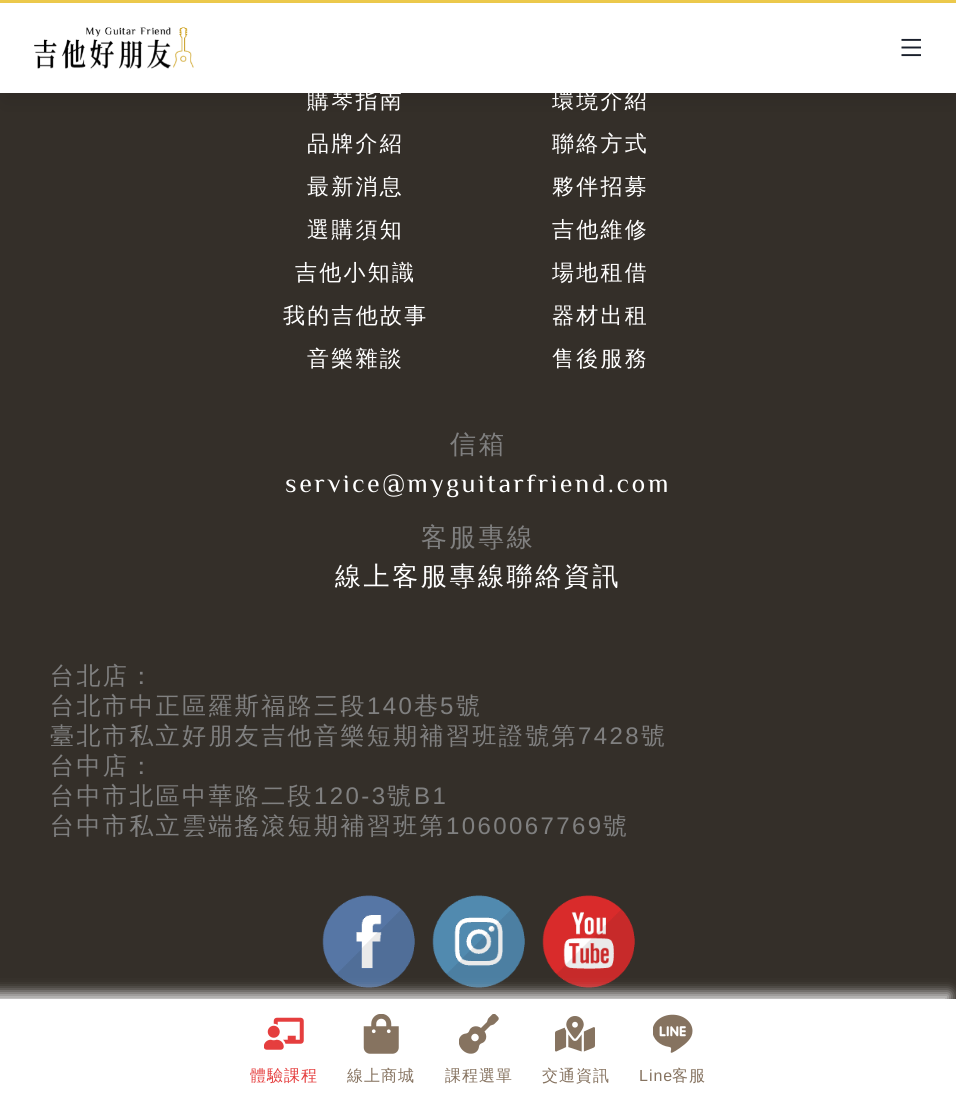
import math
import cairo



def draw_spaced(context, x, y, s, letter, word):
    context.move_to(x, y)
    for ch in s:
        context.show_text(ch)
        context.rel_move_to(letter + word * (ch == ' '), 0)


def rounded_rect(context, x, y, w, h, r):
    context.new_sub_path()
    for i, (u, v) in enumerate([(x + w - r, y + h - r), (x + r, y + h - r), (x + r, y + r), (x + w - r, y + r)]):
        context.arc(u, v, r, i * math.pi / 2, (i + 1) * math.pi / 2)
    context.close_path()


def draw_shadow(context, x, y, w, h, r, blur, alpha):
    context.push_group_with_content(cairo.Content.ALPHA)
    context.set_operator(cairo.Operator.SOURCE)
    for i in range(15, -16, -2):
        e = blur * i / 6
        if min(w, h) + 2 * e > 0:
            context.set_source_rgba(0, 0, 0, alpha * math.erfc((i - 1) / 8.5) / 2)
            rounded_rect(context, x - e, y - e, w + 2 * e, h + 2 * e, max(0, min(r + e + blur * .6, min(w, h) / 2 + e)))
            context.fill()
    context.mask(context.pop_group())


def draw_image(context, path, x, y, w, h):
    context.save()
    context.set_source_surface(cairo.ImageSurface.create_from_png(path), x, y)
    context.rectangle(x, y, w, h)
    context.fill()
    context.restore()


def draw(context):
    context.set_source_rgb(52 / 255, 47 / 255, 41 / 255)
    context.paint()
    draw_image(context, "images/1.png", 322, 895, 93, 93)
    draw_image(context, "images/2.png", 432, 895, 93, 93)
    draw_image(context, "images/3.png", 542, 895, 93, 93)
    context.set_source_rgb(1, 1, 1)
    context.rectangle(0, 3, 956, 90)
    context.fill()
    context.set_source_rgb(236 / 255, 201 / 255, 75 / 255)
    context.rectangle(0, 0, 956, 3)
    context.fill()
    context.save()
    context.set_fill_rule(cairo.FillRule.EVEN_ODD)
    context.new_path()
    context.move_to(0, 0)
    context.line_to(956, 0)
    context.line_to(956, 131)
    context.line_to(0, 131)
    context.close_path()
    context.move_to(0, 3)
    context.line_to(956, 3)
    context.line_to(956, 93)
    context.line_to(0, 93)
    context.close_path()
    context.clip()
    context.set_source_rgb(0, 0, 0)
    draw_shadow(context, 4, 19, 949, 82, 0, 9.5, 0.1)
    context.restore()
    draw_image(context, "images/4.png", 34, 27, 160, 42)
    draw_image(context, "images/5.png", 901, 38, 20, 19)
    context.set_source_rgb(220 / 255, 220 / 255, 220 / 255)
    draw_shadow(context, -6, 993, 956, 98, 0, 6, 1)
    context.set_source_rgb(1, 1, 1)
    context.rectangle(0, 999, 956, 98)
    context.fill()
    draw_image(context, "images/6.png", 264, 1017, 40, 33)
    draw_image(context, "images/7.png", 363, 1014, 36, 40)
    draw_image(context, "images/8.png", 459, 1014, 40, 40)
    draw_image(context, "images/9.png", 555, 1016, 40, 36)
    draw_image(context, "images/10.png", 653, 1014, 40, 39)
    context.select_font_face("WenQuanYi Zen Hei Medium")
    context.set_font_size(22)
    draw_spaced(context, 307, 108, "購琴指南", 2.25, 0)
    draw_spaced(context, 307, 151, "品牌介紹", 2.25, 0)
    draw_spaced(context, 307, 194, "最新消息", 2.25, 0)
    draw_spaced(context, 307, 237, "選購須知", 2.25, 0)
    draw_spaced(context, 295, 280, "吉他小知識", 2.25, 0)
    draw_spaced(context, 283, 323, "我的吉他故事", 2.25, 0)
    draw_spaced(context, 307, 366, "音樂雜談", 2.25, 0)
    draw_spaced(context, 552, 108, "環境介紹", 2.25, 0)
    draw_spaced(context, 552, 151, "聯絡方式", 2.25, 0)
    draw_spaced(context, 552, 194, "夥伴招募", 2.25, 0)
    draw_spaced(context, 552, 237, "吉他維修", 2.25, 0)
    draw_spaced(context, 552, 280, "場地租借", 2.25, 0)
    draw_spaced(context, 552, 323, "器材出租", 2.25, 0)
    draw_spaced(context, 552, 366, "售後服務", 2.25, 0)
    context.set_font_size(26)
    context.set_source_rgb(128 / 255, 128 / 255, 128 / 255)
    draw_spaced(context, 450, 453, "信箱", 2.6, 0)
    context.select_font_face("Philosopher")
    context.set_source_rgb(1, 1, 1)
    draw_spaced(context, 285, 492, "service@myguitarfriend.com", 2.6, 0)
    context.select_font_face("WenQuanYi Zen Hei Medium")
    context.set_source_rgb(128 / 255, 128 / 255, 128 / 255)
    draw_spaced(context, 421, 546, "客服專線", 2.6, 0)
    context.set_source_rgb(1, 1, 1)
    draw_spaced(context, 335, 585, "線上客服專線聯絡資訊", 2.6, 0)
    context.set_font_size(24)
    context.set_source_rgb(128 / 255, 128 / 255, 128 / 255)
    draw_spaced(context, 50, 684, "台北店：", 2.4, 0)
    draw_spaced(context, 50, 714, "台北市中正區羅斯福路三段", 2.4, 0)
    context.select_font_face("Liberation Sans")
    draw_spaced(context, 367, 714, "140", 2.4, 0)
    context.select_font_face("WenQuanYi Zen Hei Medium")
    draw_spaced(context, 414, 714, "巷", 2.4, 0)
    context.select_font_face("Liberation Sans")
    draw_spaced(context, 440, 714, "5", 2.4, 0)
    context.select_font_face("WenQuanYi Zen Hei Medium")
    draw_spaced(context, 456, 714, "號", 2.4, 0)
    draw_spaced(context, 50, 744, "臺北市私立好朋友吉他音樂短期補習班證號第", 2.4, 0)
    context.select_font_face("Liberation Sans")
    draw_spaced(context, 578, 744, "7428", 2.4, 0)
    context.select_font_face("WenQuanYi Zen Hei Medium")
    draw_spaced(context, 641, 744, "號", 2.4, 0)
    draw_spaced(context, 50, 774, "台中店：", 2.4, 0)
    draw_spaced(context, 50, 804, "台中市北區中華路二段", 2.4, 0)
    context.select_font_face("Liberation Sans")
    draw_spaced(context, 314, 804, "120-3", 2.4, 0)
    context.select_font_face("WenQuanYi Zen Hei Medium")
    draw_spaced(context, 387, 804, "號", 2.4, 0)
    context.select_font_face("Liberation Sans")
    draw_spaced(context, 414, 804, "B1", 2.4, 0)
    context.select_font_face("WenQuanYi Zen Hei Medium")
    draw_spaced(context, 50, 834, "台中市私立雲端搖滾短期補習班第", 2.4, 0)
    context.select_font_face("Liberation Sans")
    draw_spaced(context, 446, 834, "1060067769", 2.4, 0)
    context.select_font_face("WenQuanYi Zen Hei Medium")
    draw_spaced(context, 603, 834, "號", 2.4, 0)
    context.set_font_size(16)
    context.set_source_rgb(229 / 255, 62 / 255, 62 / 255)
    draw_spaced(context, 250, 1081, "體驗課程", 1, 0)
    context.set_source_rgb(134 / 255, 115 / 255, 96 / 255)
    draw_spaced(context, 347, 1081, "線上商城", 1, 0)
    draw_spaced(context, 445, 1081, "課程選單", 1, 0)
    draw_spaced(context, 542, 1081, "交通資訊", 1, 0)
    context.select_font_face("Liberation Sans")
    draw_spaced(context, 639, 1081, "Line", 1, 0)
    context.select_font_face("WenQuanYi Zen Hei Medium")
    draw_spaced(context, 672, 1081, "客服", 1, 0)


surface = cairo.ImageSurface(cairo.Format.RGB24, 956, 1097)
context = cairo.Context(surface)
options = cairo.FontOptions()
options.set_hint_metrics(cairo.HintMetrics.OFF)
options.set_hint_style(cairo.HintStyle.NONE)
context.set_font_options(options)
context.set_miter_limit(4)
draw(context)
surface.write_to_png("out.png")
